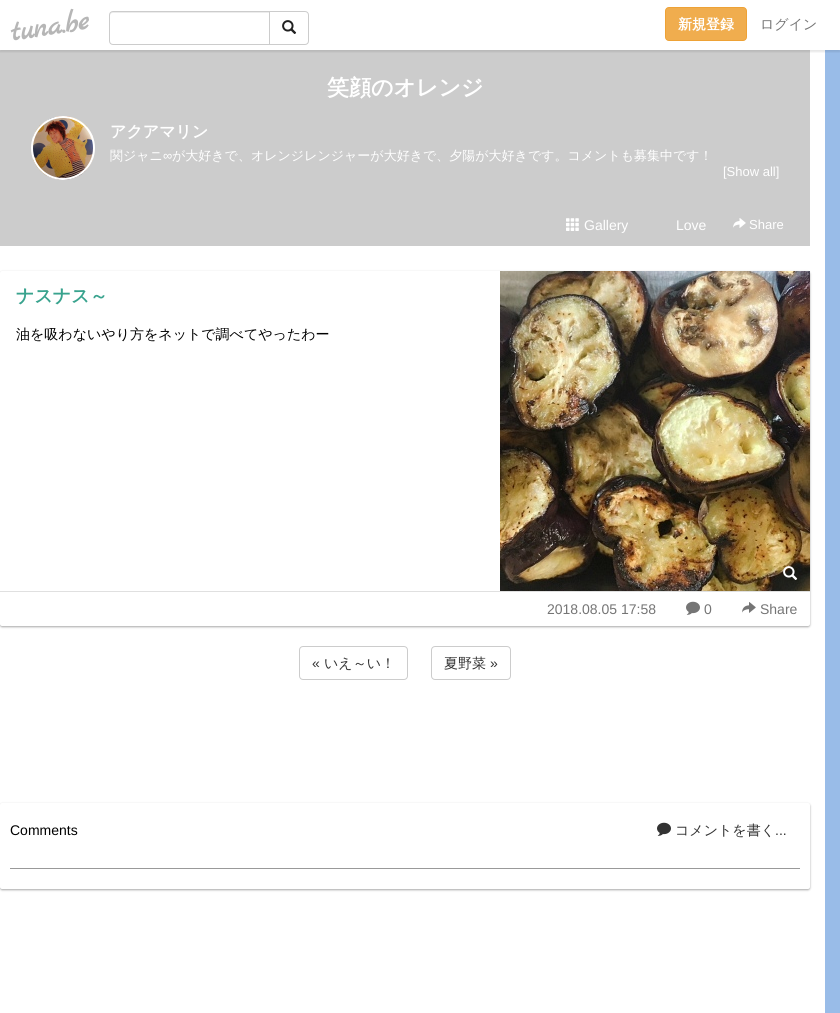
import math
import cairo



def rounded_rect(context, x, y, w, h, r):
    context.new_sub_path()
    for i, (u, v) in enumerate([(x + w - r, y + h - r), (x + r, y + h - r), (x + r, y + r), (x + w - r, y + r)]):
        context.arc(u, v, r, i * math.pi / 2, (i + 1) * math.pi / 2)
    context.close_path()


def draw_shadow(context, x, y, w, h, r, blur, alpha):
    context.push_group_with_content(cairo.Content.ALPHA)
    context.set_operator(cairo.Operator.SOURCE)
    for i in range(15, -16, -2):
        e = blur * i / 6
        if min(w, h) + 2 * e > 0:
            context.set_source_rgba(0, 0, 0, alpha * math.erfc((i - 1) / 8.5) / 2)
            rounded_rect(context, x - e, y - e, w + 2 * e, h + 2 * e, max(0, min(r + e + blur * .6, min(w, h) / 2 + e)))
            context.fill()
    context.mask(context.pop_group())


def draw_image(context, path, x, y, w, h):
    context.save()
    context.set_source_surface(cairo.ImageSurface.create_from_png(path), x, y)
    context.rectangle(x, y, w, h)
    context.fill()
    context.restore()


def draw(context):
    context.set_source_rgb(1, 1, 1)
    context.paint()
    context.set_source_rgb(204 / 255, 204 / 255, 204 / 255)
    context.rectangle(0, 50, 810, 196)
    context.fill()
    context.set_source_rgb(153 / 255, 188 / 255, 232 / 255)
    context.rectangle(825, 50, 15, 963)
    context.fill()
    context.save()
    context.rectangle(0, 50, 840, 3)
    context.clip()
    context.set_source_rgb(0, 0, 0)
    draw_shadow(context, 0, 2, 840, 50, 0, 1, 0.1)
    context.restore()
    context.set_source_rgb(236 / 255, 236 / 255, 236 / 255)
    context.new_path()
    context.move_to(113, 13)
    context.line_to(269, 13)
    context.line_to(269, 12)
    context.line_to(112, 12)
    context.curve_to(110, 12, 110, 14, 110, 16)
    context.curve_to(110, 14, 111, 13, 113, 13)
    context.close_path()
    context.fill()
    context.new_path()
    context.move_to(113, 11.5)
    context.line_to(269.5, 11.5)
    context.line_to(269.5, 44.5)
    context.line_to(113, 44.5)
    context.curve_to(111, 44.5, 109.5, 43, 109.5, 41)
    context.line_to(109.5, 15)
    context.curve_to(109.5, 13, 111, 11.5, 113, 11.5)
    context.close_path()
    context.set_source_rgb(204 / 255, 204 / 255, 204 / 255)
    context.set_line_width(1)
    context.stroke()
    context.set_source_rgb(1, 1, 1)
    context.new_path()
    context.move_to(269.5, 11.5)
    context.line_to(305, 11.5)
    context.curve_to(307, 11.5, 308.5, 13, 308.5, 15)
    context.line_to(308.5, 41)
    context.curve_to(308.5, 43, 307, 44.5, 305, 44.5)
    context.line_to(269.5, 44.5)
    context.close_path()
    context.fill_preserve()
    context.set_source_rgb(204 / 255, 204 / 255, 204 / 255)
    context.stroke()
    draw_image(context, "images/1.png", 282, 20, 15, 14)
    context.set_source_rgb(240 / 255, 173 / 255, 78 / 255)
    rounded_rect(context, 665.5, 7.5, 81, 33, 3.5)
    context.fill_preserve()
    context.set_source_rgb(238 / 255, 162 / 255, 54 / 255)
    context.stroke()
    draw_image(context, "images/2.png", 33, 116, 60, 64)
    context.arc(63, 148, 31, 0, 2 * math.pi)
    context.set_source_rgb(1, 1, 1)
    context.set_line_width(2)
    context.stroke()
    draw_image(context, "images/3.png", 566, 218, 13, 13)
    draw_image(context, "images/4.png", 733, 218, 13, 10)
    context.set_source_rgb(170 / 255, 170 / 255, 170 / 255)
    draw_shadow(context, 0, 272, 810, 355, 2, 1, 1)
    context.set_source_rgb(1, 1, 1)
    rounded_rect(context, 0, 271, 810, 355, 2)
    context.fill()
    draw_image(context, "images/5.png", 500, 271, 310, 320)
    draw_image(context, "images/6.png", 783, 566, 15, 14)
    context.set_source_rgb(224 / 255, 224 / 255, 224 / 255)
    context.rectangle(0, 591, 810, 1)
    context.fill()
    draw_image(context, "images/7.png", 686, 601, 14, 14)
    draw_image(context, "images/8.png", 742, 602, 14, 11)
    rounded_rect(context, 299.5, 646.5, 108, 33, 3.5)
    context.set_source_rgb(204 / 255, 204 / 255, 204 / 255)
    context.set_line_width(1)
    context.stroke()
    rounded_rect(context, 431.5, 646.5, 79, 33, 3.5)
    context.stroke()
    context.set_source_rgb(170 / 255, 170 / 255, 170 / 255)
    draw_shadow(context, 0, 804, 810, 86, 2, 1, 1)
    context.set_source_rgb(1, 1, 1)
    rounded_rect(context, 0, 803, 810, 86, 2)
    context.fill()
    draw_image(context, "images/9.png", 657, 822, 14, 14)
    context.set_source_rgb(153 / 255, 153 / 255, 153 / 255)
    context.rectangle(10, 868, 790, 1)
    context.fill()
    context.save()
    context.new_path()
    context.move_to(6.5, 7.5)
    context.line_to(85, -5)
    context.line_to(93, 44.5)
    context.line_to(14.5, 57)
    context.close_path()
    context.clip()
    context.select_font_face("Marck Script", cairo.FontSlant.NORMAL, cairo.FontWeight.BOLD)
    context.set_font_size(30)
    context.set_source_rgb(182 / 255, 182 / 255, 182 / 255)
    context.save()
    context.translate(12, 41)
    context.rotate(-9 * math.pi / 180)
    context.move_to(0, 0)
    context.show_text("tuna.be")
    context.restore()
    context.restore()
    context.select_font_face("WenQuanYi Zen Hei", cairo.FontSlant.NORMAL, cairo.FontWeight.BOLD)
    context.set_font_size(14)
    context.set_source_rgb(1, 1, 1)
    context.move_to(678, 29)
    context.show_text("新規登録")
    context.select_font_face("WenQuanYi Zen Hei Medium")
    context.set_source_rgb(117 / 255, 117 / 255, 117 / 255)
    context.move_to(760, 29)
    context.show_text("ログイン")
    context.select_font_face("WenQuanYi Zen Hei", cairo.FontSlant.NORMAL, cairo.FontWeight.BOLD)
    context.set_font_size(22)
    context.set_source_rgb(1, 1, 1)
    context.move_to(327, 95)
    context.show_text("笑顔のオレンジ")
    context.set_font_size(16)
    context.move_to(110, 137)
    context.show_text("アクアマリン")
    context.select_font_face("WenQuanYi Zen Hei Medium")
    context.set_font_size(13)
    context.move_to(110, 160)
    context.show_text("関ジャニ")
    context.select_font_face("Liberation Sans")
    context.move_to(163, 160)
    context.show_text("∞")
    context.select_font_face("WenQuanYi Zen Hei Medium")
    context.move_to(172, 160)
    context.show_text("が大好きで、オレンジレンジャーが大好きで、夕陽が大好きです。コメントも募集中です！")
    context.select_font_face("Liberation Sans")
    context.move_to(723, 176)
    context.show_text("[Show all]")
    context.set_font_size(14)
    context.move_to(584, 230)
    context.show_text("Gallery")
    context.move_to(676, 230)
    context.show_text("Love")
    context.set_font_size(13)
    context.move_to(749, 229)
    context.show_text("Share")
    context.select_font_face("WenQuanYi Zen Hei", cairo.FontSlant.NORMAL, cairo.FontWeight.BOLD)
    context.set_font_size(18)
    context.set_source_rgb(57 / 255, 163 / 255, 142 / 255)
    context.move_to(16, 302)
    context.show_text("ナスナス～")
    context.select_font_face("WenQuanYi Zen Hei Medium")
    context.set_font_size(14)
    context.set_source_rgb(0, 0, 0)
    context.move_to(16, 339)
    context.show_text("油を吸わないやり方をネットで調べてやったわー")
    context.select_font_face("Liberation Sans")
    context.set_source_rgb(117 / 255, 117 / 255, 117 / 255)
    context.move_to(547, 614)
    context.show_text("2018.08.05 17:58")
    context.move_to(704, 614)
    context.show_text("0")
    context.move_to(760, 614)
    context.show_text("Share")
    context.set_source_rgb(51 / 255, 51 / 255, 51 / 255)
    context.move_to(312, 668)
    context.show_text("«")
    context.select_font_face("WenQuanYi Zen Hei Medium")
    context.move_to(324, 668)
    context.show_text("いえ～い！")
    context.move_to(444, 668)
    context.show_text("夏野菜")
    context.select_font_face("Liberation Sans")
    context.move_to(490, 668)
    context.show_text("»")
    context.set_source_rgb(0, 0, 0)
    context.move_to(10, 835)
    context.show_text("Comments")
    context.select_font_face("WenQuanYi Zen Hei Medium")
    context.set_source_rgb(51 / 255, 51 / 255, 51 / 255)
    context.move_to(675, 835)
    context.show_text("コメントを書く")
    context.select_font_face("Liberation Sans")
    context.move_to(775, 835)
    context.show_text("...")


surface = cairo.ImageSurface(cairo.Format.RGB24, 840, 1013)
context = cairo.Context(surface)
options = cairo.FontOptions()
options.set_hint_metrics(cairo.HintMetrics.OFF)
options.set_hint_style(cairo.HintStyle.NONE)
context.set_font_options(options)
context.set_miter_limit(4)
draw(context)
surface.write_to_png("out.png")
